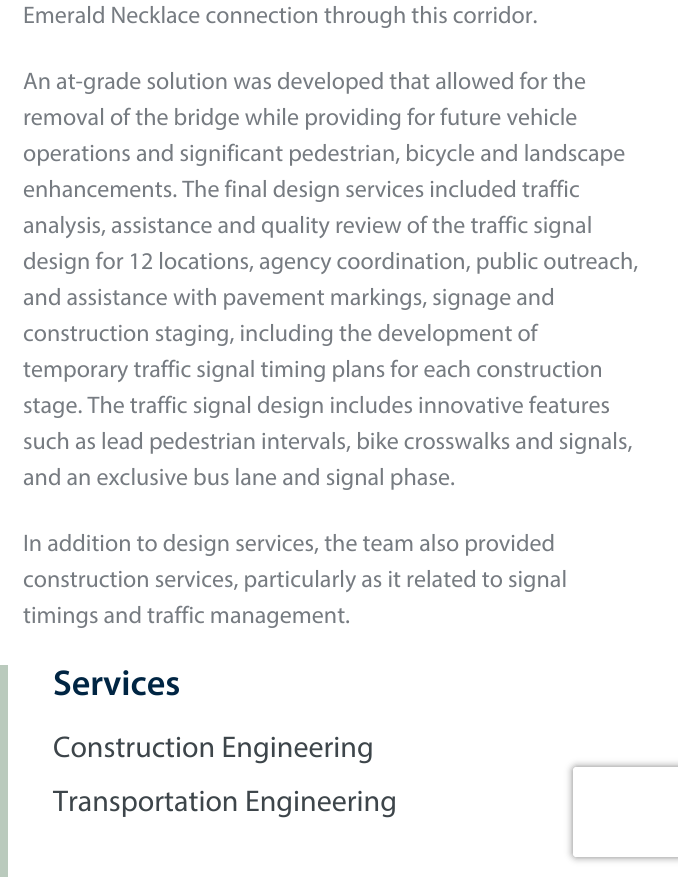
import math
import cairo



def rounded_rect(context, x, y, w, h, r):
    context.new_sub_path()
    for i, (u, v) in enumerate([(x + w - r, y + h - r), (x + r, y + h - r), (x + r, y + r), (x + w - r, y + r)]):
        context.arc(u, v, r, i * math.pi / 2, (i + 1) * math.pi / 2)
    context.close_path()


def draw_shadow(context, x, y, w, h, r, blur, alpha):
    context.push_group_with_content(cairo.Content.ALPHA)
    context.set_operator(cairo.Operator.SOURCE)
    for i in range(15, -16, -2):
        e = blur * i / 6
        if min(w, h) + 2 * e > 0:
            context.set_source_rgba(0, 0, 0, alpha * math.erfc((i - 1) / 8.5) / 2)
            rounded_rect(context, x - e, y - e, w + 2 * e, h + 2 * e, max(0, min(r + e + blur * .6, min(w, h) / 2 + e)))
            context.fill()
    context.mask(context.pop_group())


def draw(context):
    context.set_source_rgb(1, 1, 1)
    context.paint()
    context.set_source_rgb(186 / 255, 202 / 255, 189 / 255)
    context.rectangle(0, 665, 8, 212)
    context.fill()
    context.save()
    context.set_fill_rule(cairo.FillRule.EVEN_ODD)
    context.new_path()
    context.move_to(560, 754)
    context.line_to(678, 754)
    context.line_to(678, 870)
    context.line_to(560, 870)
    context.close_path()
    context.move_to(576, 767)
    context.line_to(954, 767)
    context.curve_to(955.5, 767, 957, 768.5, 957, 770)
    context.line_to(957, 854)
    context.curve_to(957, 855.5, 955.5, 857, 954, 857)
    context.line_to(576, 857)
    context.curve_to(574.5, 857, 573, 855.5, 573, 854)
    context.line_to(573, 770)
    context.curve_to(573, 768.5, 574.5, 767, 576, 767)
    context.close_path()
    context.clip()
    context.set_source_rgb(128 / 255, 128 / 255, 128 / 255)
    draw_shadow(context, 573, 767, 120, 90, 3, 4, 1)
    context.restore()
    context.select_font_face("Myriad")
    context.set_font_size(24)
    context.set_source_rgb(118 / 255, 123 / 255, 129 / 255)
    context.move_to(23, 23)
    context.show_text("Emerald Necklace connection through this corridor.")
    context.move_to(23, 89)
    context.show_text("An at-grade solution was developed that allowed for the")
    context.move_to(23, 125)
    context.show_text("removal of the bridge while providing for future vehicle")
    context.move_to(23, 161)
    context.show_text("operations and significant pedestrian, bicycle and landscape")
    context.move_to(23, 197)
    context.show_text("enhancements. The final design services included traffic")
    context.move_to(23, 233)
    context.show_text("analysis, assistance and quality review of the traffic signal")
    context.move_to(23, 269)
    context.show_text("design for 12 locations, agency coordination, public outreach,")
    context.move_to(23, 305)
    context.show_text("and assistance with pavement markings, signage and")
    context.move_to(23, 341)
    context.show_text("construction staging, including the development of")
    context.move_to(23, 377)
    context.show_text("temporary traffic signal timing plans for each construction")
    context.move_to(23, 413)
    context.show_text("stage. The traffic signal design includes innovative features")
    context.move_to(23, 449)
    context.show_text("such as lead pedestrian intervals, bike crosswalks and signals,")
    context.move_to(23, 485)
    context.show_text("and an exclusive bus lane and signal phase.")
    context.move_to(23, 551)
    context.show_text("In addition to design services, the team also provided")
    context.move_to(23, 587)
    context.show_text("construction services, particularly as it related to signal")
    context.move_to(23, 623)
    context.show_text("timings and traffic management.")
    context.select_font_face("Myriad SemiBold")
    context.set_font_size(36)
    context.set_source_rgb(0, 37 / 255, 67 / 255)
    context.move_to(53, 695)
    context.show_text("Services")
    context.select_font_face("Myriad")
    context.set_font_size(30)
    context.set_source_rgb(61 / 255, 69 / 255, 74 / 255)
    context.move_to(53, 757)
    context.show_text("Construction Engineering")
    context.move_to(53, 811)
    context.show_text("Transportation Engineering")


surface = cairo.ImageSurface(cairo.Format.RGB24, 678, 877)
context = cairo.Context(surface)
options = cairo.FontOptions()
options.set_hint_metrics(cairo.HintMetrics.OFF)
options.set_hint_style(cairo.HintStyle.NONE)
context.set_font_options(options)
context.set_miter_limit(4)
draw(context)
surface.write_to_png("out.png")
